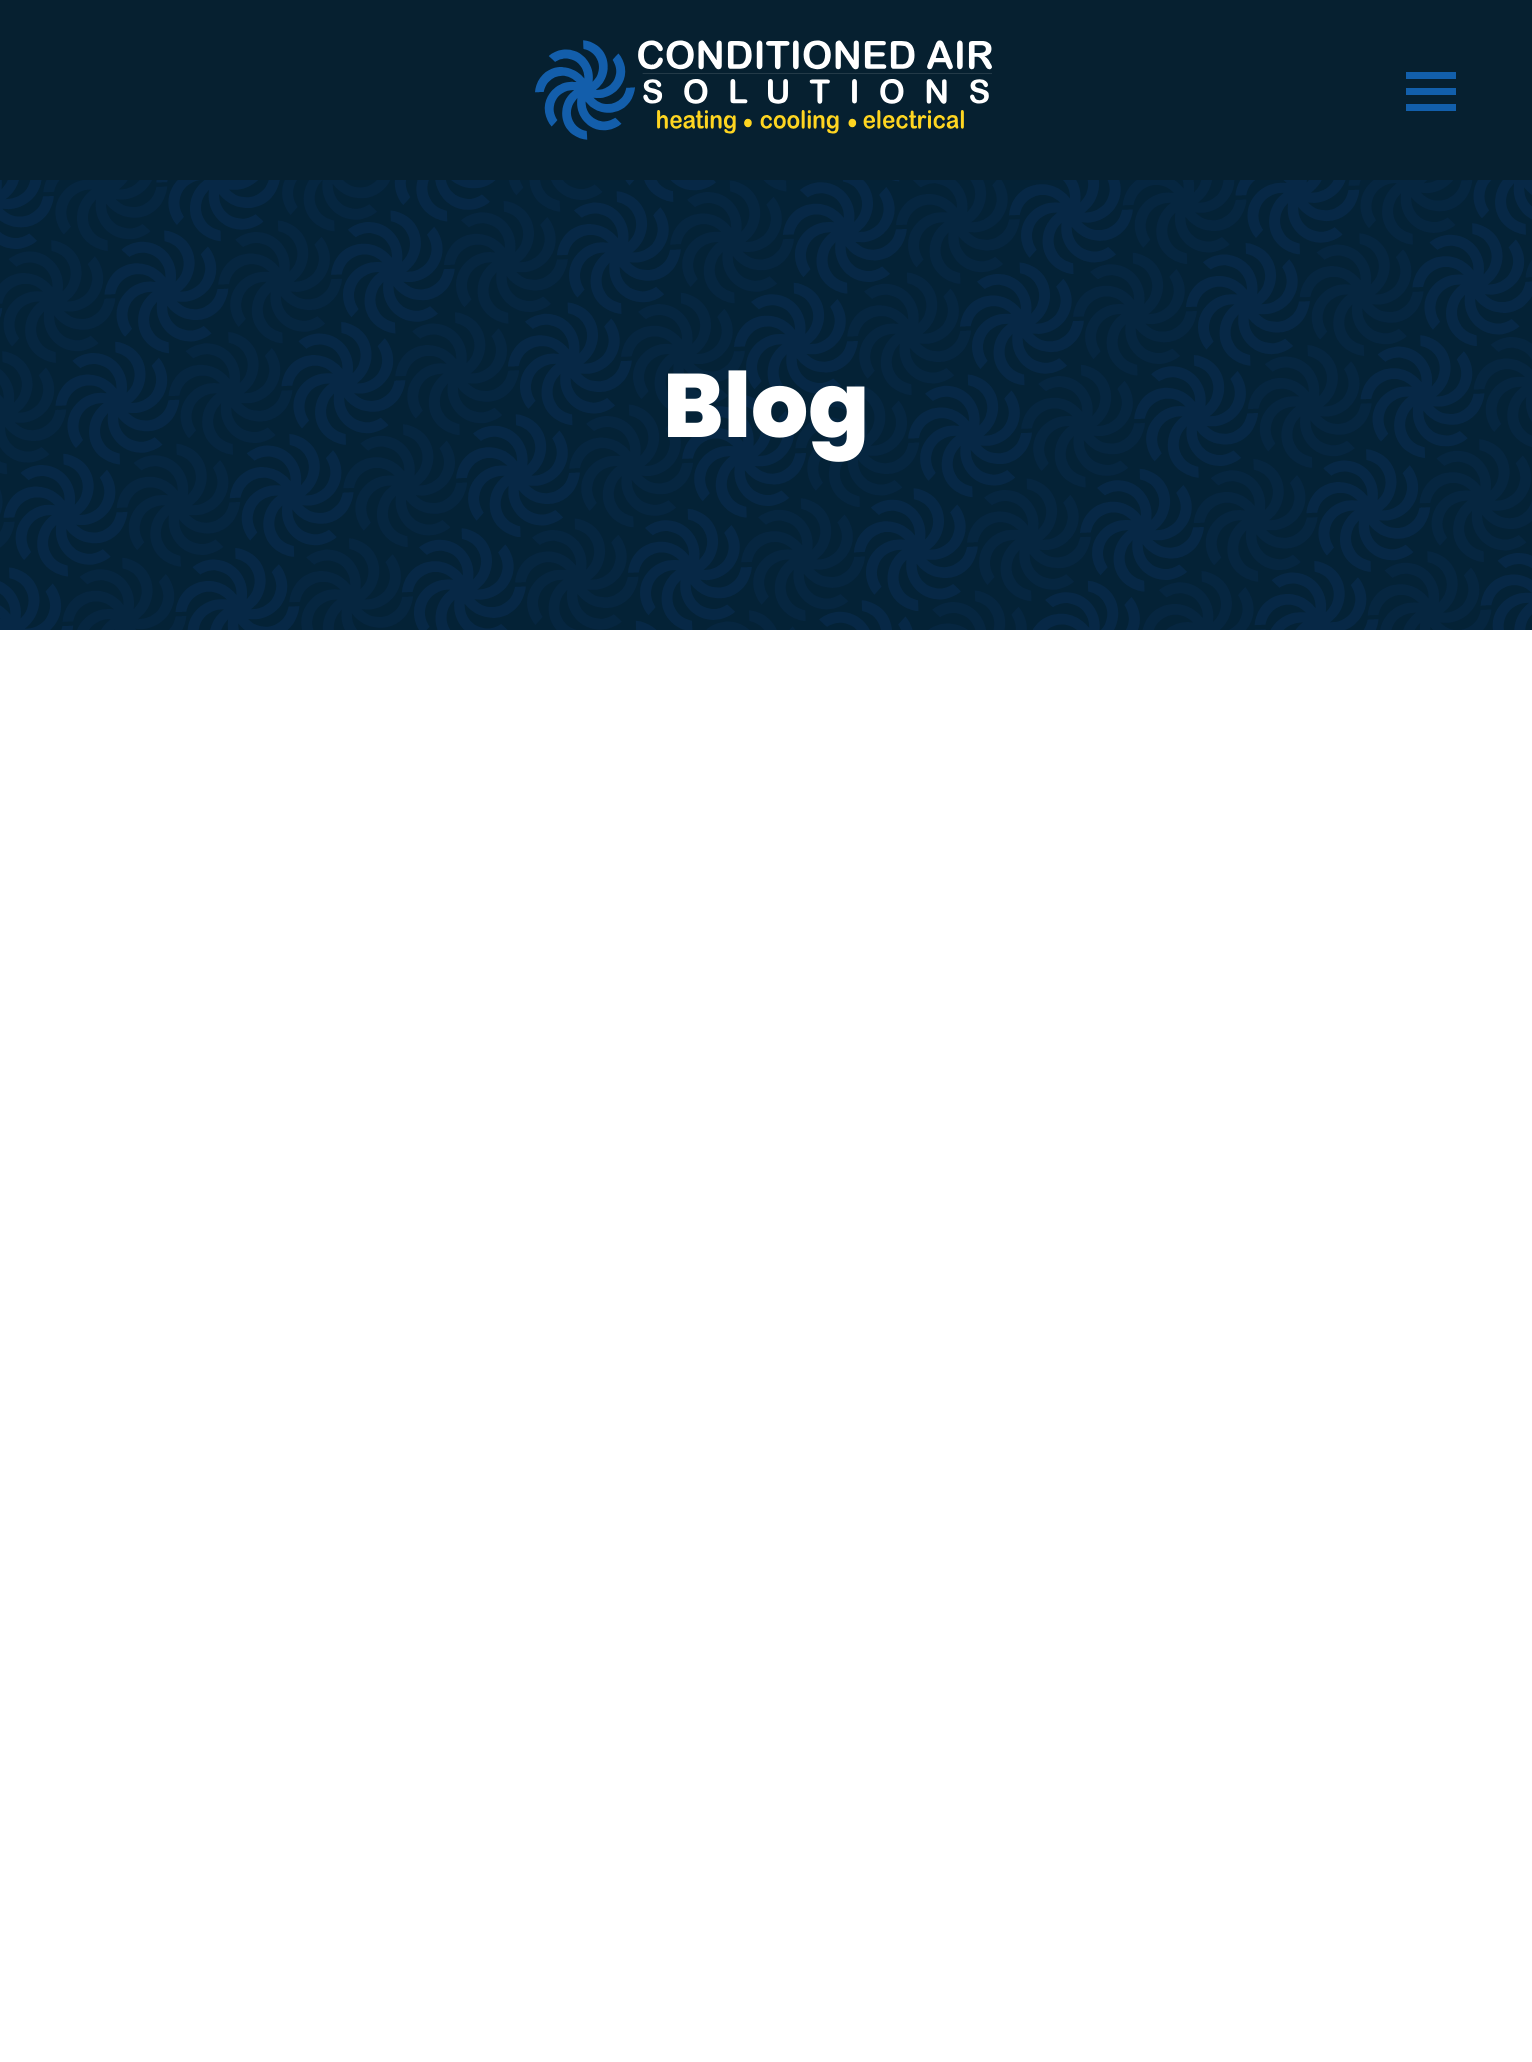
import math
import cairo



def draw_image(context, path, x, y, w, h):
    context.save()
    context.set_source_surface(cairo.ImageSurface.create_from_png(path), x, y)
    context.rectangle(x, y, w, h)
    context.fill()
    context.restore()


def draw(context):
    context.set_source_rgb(1, 1, 1)
    context.paint()
    context.set_source_rgb(6 / 255, 32 / 255, 48 / 255)
    context.rectangle(0, 0, 1532, 180)
    context.fill()
    draw_image(context, "images/1.png", 535, 40, 457, 100)
    context.set_source_rgb(18 / 255, 95 / 255, 171 / 255)
    context.rectangle(1406, 88, 50, 7)
    context.fill()
    context.rectangle(1406, 72, 50, 7)
    context.fill()
    context.rectangle(1406, 104, 50, 7)
    context.fill()
    draw_image(context, "images/2.png", 0, 180, 1532, 450)
    context.select_font_face("Poppins ExtraBold")
    context.set_font_size(90)
    context.set_source_rgb(1, 1, 1)
    context.move_to(663, 437)
    context.show_text("Blog")


surface = cairo.ImageSurface(cairo.Format.RGB24, 1532, 2062)
context = cairo.Context(surface)
options = cairo.FontOptions()
options.set_hint_metrics(cairo.HintMetrics.OFF)
options.set_hint_style(cairo.HintStyle.NONE)
context.set_font_options(options)
context.set_miter_limit(4)
draw(context)
surface.write_to_png("out.png")
